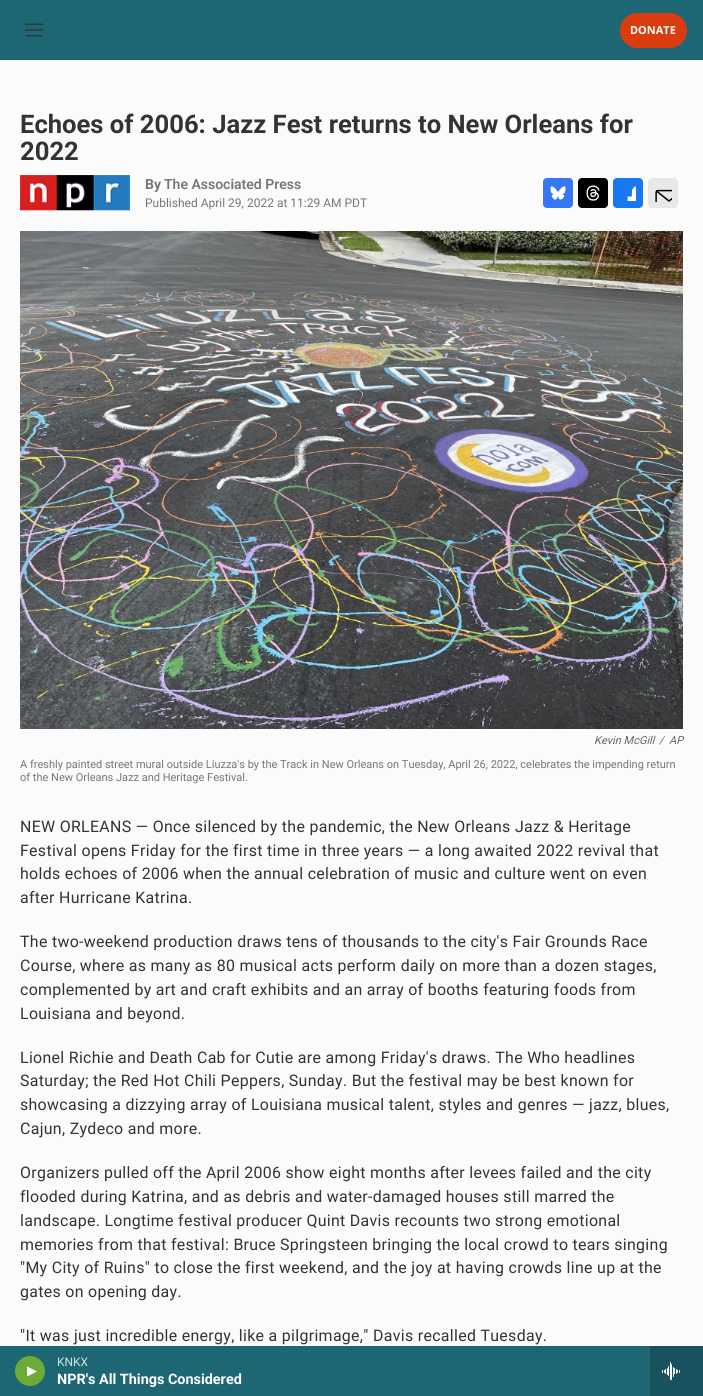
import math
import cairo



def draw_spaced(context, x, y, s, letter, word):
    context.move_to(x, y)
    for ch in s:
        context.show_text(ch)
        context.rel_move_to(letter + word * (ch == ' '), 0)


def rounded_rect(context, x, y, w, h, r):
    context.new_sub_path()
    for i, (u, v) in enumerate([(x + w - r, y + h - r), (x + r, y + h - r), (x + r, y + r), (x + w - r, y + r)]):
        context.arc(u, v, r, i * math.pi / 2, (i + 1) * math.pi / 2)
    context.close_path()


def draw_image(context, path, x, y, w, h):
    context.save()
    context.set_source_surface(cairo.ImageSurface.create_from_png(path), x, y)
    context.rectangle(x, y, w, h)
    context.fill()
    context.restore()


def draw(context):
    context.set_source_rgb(251 / 255, 251 / 255, 251 / 255)
    context.paint()
    context.set_source_rgb(245 / 255, 245 / 255, 245 / 255)
    context.rectangle(0, 60, 703, 1)
    context.fill()
    context.set_source_rgb(29 / 255, 103 / 255, 117 / 255)
    context.rectangle(0, 0, 703, 60)
    context.fill()
    draw_image(context, "images/1.png", 25, 23, 18, 14)
    context.set_source_rgb(219 / 255, 60 / 255, 15 / 255)
    rounded_rect(context, 620, 13, 67, 35, 17.5)
    context.fill()
    context.set_source_rgb(29 / 255, 103 / 255, 117 / 255)
    context.rectangle(0, 1346, 650, 50)
    context.fill()
    context.set_source_rgb(108 / 255, 171 / 255, 54 / 255)
    context.arc(30, 1371, 15, 0, 2 * math.pi)
    context.fill()
    context.set_source_rgb(1, 1, 1)
    context.new_path()
    context.move_to(27, 1366.5)
    context.line_to(37, 1371.5)
    context.line_to(27, 1376.5)
    context.close_path()
    context.fill()
    context.set_source_rgb(23 / 255, 82 / 255, 94 / 255)
    context.rectangle(650, 1346, 53, 50)
    context.fill()
    draw_image(context, "images/2.png", 662, 1362, 18, 18)
    draw_image(context, "images/3.png", 20, 175, 110, 36)
    context.set_source_rgb(53 / 255, 120 / 255, 246 / 255)
    rounded_rect(context, 543, 178, 30, 30, 4)
    context.fill()
    draw_image(context, "images/4.png", 550, 186, 16, 14)
    context.set_source_rgb(0, 0, 0)
    rounded_rect(context, 578, 178, 30, 30, 4)
    context.fill()
    draw_image(context, "images/5.png", 586, 185, 14, 16)
    context.set_source_rgb(23 / 255, 120 / 255, 242 / 255)
    rounded_rect(context, 613, 178, 30, 30, 4)
    context.fill()
    draw_image(context, "images/6.png", 627, 186, 9, 15)
    context.set_source_rgb(232 / 255, 232 / 255, 232 / 255)
    rounded_rect(context, 648.5, 178.5, 29, 29, 3.5)
    context.fill_preserve()
    context.set_source_rgb(230 / 255, 230 / 255, 230 / 255)
    context.set_line_width(1)
    context.stroke()
    draw_image(context, "images/7.png", 655, 189, 17, 13)
    draw_image(context, "images/8.png", 20, 231, 663, 498)
    context.select_font_face("Noto Sans", cairo.FontSlant.NORMAL, cairo.FontWeight.BOLD)
    context.set_font_size(11)
    context.set_source_rgb(1, 1, 1)
    context.move_to(630, 34)
    context.show_text("DONATE")
    context.select_font_face("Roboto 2")
    context.set_font_size(12)
    context.set_source_rgb(210 / 255, 225 / 255, 227 / 255)
    context.move_to(57, 1366)
    context.show_text("KNKX")
    context.select_font_face("Roboto 2", cairo.FontSlant.NORMAL, cairo.FontWeight.BOLD)
    context.set_font_size(14.4)
    context.set_source_rgb(1, 1, 1)
    context.move_to(57, 1384)
    context.show_text("NPR's All Things Considered")
    context.select_font_face("Roboto", cairo.FontSlant.NORMAL, cairo.FontWeight.BOLD)
    context.set_font_size(25.6)
    context.set_source_rgb(51 / 255, 51 / 255, 51 / 255)
    context.move_to(20, 133)
    context.show_text("Echoes of 2006: Jazz Fest returns to New Orleans for")
    context.move_to(20, 160)
    context.show_text("2022")
    context.set_font_size(14)
    context.set_source_rgb(118 / 255, 118 / 255, 118 / 255)
    context.move_to(145, 189)
    context.show_text("By")
    context.select_font_face("Roboto SemiBold")
    context.move_to(164, 189)
    context.show_text("The Associated Press")
    context.select_font_face("Roboto")
    context.set_font_size(12)
    context.move_to(145, 207)
    context.show_text("Published April 29, 2022 at 11:29 AM PDT")
    context.select_font_face("Roboto", cairo.FontSlant.ITALIC)
    context.set_font_size(11)
    context.set_source_rgb(102 / 255, 102 / 255, 102 / 255)
    context.move_to(594, 744)
    context.show_text("Kevin McGill")
    context.move_to(659, 744)
    context.show_text("/")
    context.move_to(669, 744)
    context.show_text("AP")
    context.select_font_face("Roboto")
    context.set_source_rgb(118 / 255, 118 / 255, 118 / 255)
    context.move_to(20, 768)
    context.show_text("A freshly painted street mural outside Liuzza's by the Track in New Orleans on Tuesday, April 26, 2022, celebrates the impending return")
    context.move_to(20, 781)
    context.show_text("of the New Orleans Jazz and Heritage Festival.")
    context.select_font_face("Roboto 2")
    context.set_font_size(15.9)
    context.set_source_rgb(51 / 255, 51 / 255, 51 / 255)
    draw_spaced(context, 20, 832, "NEW ORLEANS — Once silenced by the pandemic, the New Orleans Jazz & Heritage", 0.32, 0)
    draw_spaced(context, 20, 856, "Festival opens Friday for the first time in three years — a long awaited 2022 revival that", 0.32, 0)
    draw_spaced(context, 20, 879, "holds echoes of 2006 when the annual celebration of music and culture went on even", 0.32, 0)
    draw_spaced(context, 20, 903, "after Hurricane Katrina.", 0.32, 0)
    draw_spaced(context, 20, 947, "The two-weekend production draws tens of thousands to the city's Fair Grounds Race", 0.32, 0)
    draw_spaced(context, 20, 971, "Course, where as many as 80 musical acts perform daily on more than a dozen stages,", 0.32, 0)
    draw_spaced(context, 20, 995, "complemented by art and craft exhibits and an array of booths featuring foods from", 0.32, 0)
    draw_spaced(context, 20, 1019, "Louisiana and beyond.", 0.32, 0)
    draw_spaced(context, 20, 1063, "Lionel Richie and Death Cab for Cutie are among Friday's draws. The Who headlines", 0.32, 0)
    draw_spaced(context, 20, 1086, "Saturday; the Red Hot Chili Peppers, Sunday. But the festival may be best known for", 0.32, 0)
    draw_spaced(context, 20, 1110, "showcasing a dizzying array of Louisiana musical talent, styles and genres — jazz, blues,", 0.32, 0)
    draw_spaced(context, 20, 1134, "Cajun, Zydeco and more.", 0.32, 0)
    draw_spaced(context, 20, 1178, "Organizers pulled off the April 2006 show eight months after levees failed and the city", 0.32, 0)
    draw_spaced(context, 20, 1202, "flooded during Katrina, and as debris and water-damaged houses still marred the", 0.32, 0)
    draw_spaced(context, 20, 1226, "landscape. Longtime festival producer Quint Davis recounts two strong emotional", 0.32, 0)
    draw_spaced(context, 20, 1250, "memories from that festival: Bruce Springsteen bringing the local crowd to tears singing", 0.32, 0)
    draw_spaced(context, 20, 1273, "\"My City of Ruins\" to close the first weekend, and the joy at having crowds line up at the", 0.32, 0)
    draw_spaced(context, 20, 1297, "gates on opening day.", 0.32, 0)
    draw_spaced(context, 20, 1341, "\"It was just incredible energy, like a pilgrimage,\" Davis recalled Tuesday.", 0.32, 0)


surface = cairo.ImageSurface(cairo.Format.RGB24, 703, 1396)
context = cairo.Context(surface)
options = cairo.FontOptions()
options.set_hint_metrics(cairo.HintMetrics.OFF)
options.set_hint_style(cairo.HintStyle.NONE)
context.set_font_options(options)
context.set_miter_limit(4)
draw(context)
surface.write_to_png("out.png")
